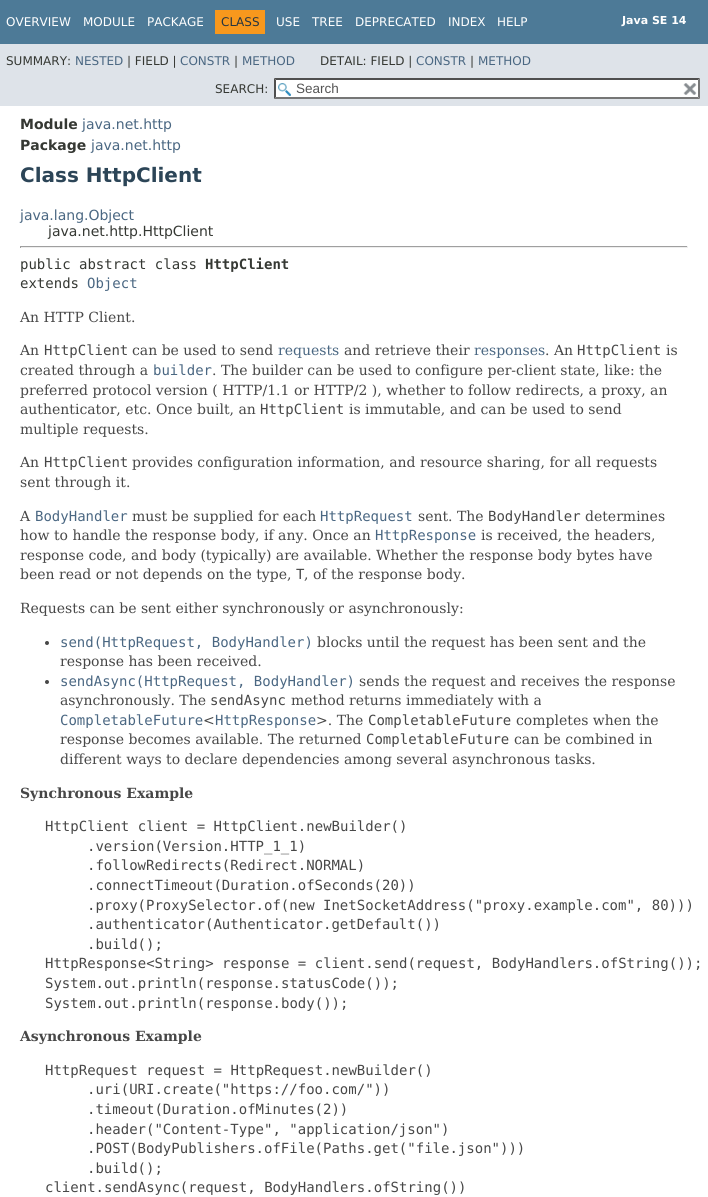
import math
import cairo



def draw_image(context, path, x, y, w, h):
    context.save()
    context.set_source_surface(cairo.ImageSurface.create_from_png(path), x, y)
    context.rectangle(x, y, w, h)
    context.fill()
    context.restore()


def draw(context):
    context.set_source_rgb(1, 1, 1)
    context.paint()
    context.set_source_rgb(77 / 255, 122 / 255, 151 / 255)
    context.rectangle(0, 0, 708, 44)
    context.fill()
    context.set_source_rgb(248 / 255, 152 / 255, 29 / 255)
    context.rectangle(215, 10, 50, 24)
    context.fill()
    context.set_source_rgb(222 / 255, 227 / 255, 233 / 255)
    context.rectangle(0, 44, 708, 62)
    context.fill()
    context.set_source_rgb(1, 1, 1)
    context.rectangle(274, 78, 426, 21)
    context.fill()
    draw_image(context, "images/1.png", 278, 83, 13, 13)
    context.set_source_rgb(79 / 255, 79 / 255, 79 / 255)
    context.new_path()
    context.move_to(274, 78)
    context.line_to(700, 78)
    context.line_to(698, 80)
    context.line_to(276, 80)
    context.close_path()
    context.fill()
    context.set_source_rgb(118 / 255, 118 / 255, 118 / 255)
    context.new_path()
    context.move_to(700, 78)
    context.line_to(700, 99)
    context.line_to(698, 97)
    context.line_to(698, 80)
    context.close_path()
    context.fill()
    context.new_path()
    context.move_to(700, 99)
    context.line_to(274, 99)
    context.line_to(276, 97)
    context.line_to(698, 97)
    context.close_path()
    context.fill()
    context.set_source_rgb(79 / 255, 79 / 255, 79 / 255)
    context.new_path()
    context.move_to(274, 99)
    context.line_to(274, 78)
    context.line_to(276, 80)
    context.line_to(276, 97)
    context.close_path()
    context.fill()
    draw_image(context, "images/2.png", 683, 83, 14, 12)
    context.set_source_rgb(159 / 255, 159 / 255, 159 / 255)
    context.rectangle(20, 246, 668, 1)
    context.fill()
    context.set_source_rgb(238 / 255, 238 / 255, 238 / 255)
    context.rectangle(687, 246, 1, 2)
    context.fill()
    context.rectangle(20, 247, 668, 1)
    context.fill()
    context.set_source_rgb(159 / 255, 159 / 255, 159 / 255)
    context.rectangle(20, 246, 1, 2)
    context.fill()
    context.set_source_rgb(71 / 255, 71 / 255, 71 / 255)
    context.arc(47, 643, 2, 0, 2 * math.pi)
    context.fill()
    context.arc(47, 682, 2, 0, 2 * math.pi)
    context.fill()
    context.select_font_face("DejaVu Sans")
    context.set_font_size(12)
    context.set_source_rgb(1, 1, 1)
    context.move_to(6, 26)
    context.show_text("OVERVIEW")
    context.move_to(83, 26)
    context.show_text("MODULE")
    context.move_to(147, 26)
    context.show_text("PACKAGE")
    context.set_source_rgb(37 / 255, 52 / 255, 65 / 255)
    context.move_to(221, 26)
    context.show_text("CLASS")
    context.set_source_rgb(1, 1, 1)
    context.move_to(276, 26)
    context.show_text("USE")
    context.move_to(312, 26)
    context.show_text("TREE")
    context.move_to(355, 26)
    context.show_text("DEPRECATED")
    context.move_to(448, 26)
    context.show_text("INDEX")
    context.move_to(497, 26)
    context.show_text("HELP")
    context.select_font_face("DejaVu Sans", cairo.FontSlant.NORMAL, cairo.FontWeight.BOLD)
    context.set_font_size(11)
    context.move_to(622, 24)
    context.show_text("Java SE 14")
    context.select_font_face("DejaVu Sans")
    context.set_font_size(12)
    context.set_source_rgb(53 / 255, 56 / 255, 51 / 255)
    context.move_to(6, 65)
    context.show_text("SUMMARY:")
    context.set_source_rgb(74 / 255, 103 / 255, 130 / 255)
    context.move_to(75, 65)
    context.show_text("NESTED")
    context.set_source_rgb(53 / 255, 56 / 255, 51 / 255)
    context.move_to(127, 65)
    context.show_text("| FIELD |")
    context.set_source_rgb(74 / 255, 103 / 255, 130 / 255)
    context.move_to(180, 65)
    context.show_text("CONSTR")
    context.set_source_rgb(53 / 255, 56 / 255, 51 / 255)
    context.move_to(234, 65)
    context.show_text("|")
    context.set_source_rgb(74 / 255, 103 / 255, 130 / 255)
    context.move_to(242, 65)
    context.show_text("METHOD")
    context.set_source_rgb(53 / 255, 56 / 255, 51 / 255)
    context.move_to(320, 65)
    context.show_text("DETAIL: FIELD |")
    context.set_source_rgb(74 / 255, 103 / 255, 130 / 255)
    context.move_to(416, 65)
    context.show_text("CONSTR")
    context.set_source_rgb(53 / 255, 56 / 255, 51 / 255)
    context.move_to(470, 65)
    context.show_text("|")
    context.set_source_rgb(74 / 255, 103 / 255, 130 / 255)
    context.move_to(478, 65)
    context.show_text("METHOD")
    context.set_source_rgb(53 / 255, 56 / 255, 51 / 255)
    context.move_to(215, 93)
    context.show_text("SEARCH:")
    context.select_font_face("Liberation Sans")
    context.set_font_size(13.5)
    context.set_source_rgb(84 / 255, 84 / 255, 84 / 255)
    context.move_to(296, 93)
    context.show_text("Search")
    context.select_font_face("DejaVu Sans", cairo.FontSlant.NORMAL, cairo.FontWeight.BOLD)
    context.set_font_size(14)
    context.set_source_rgb(53 / 255, 56 / 255, 51 / 255)
    context.move_to(20, 129)
    context.show_text("Module")
    context.select_font_face("DejaVu Sans")
    context.set_source_rgb(74 / 255, 103 / 255, 130 / 255)
    context.move_to(82, 129)
    context.show_text("java.net.http")
    context.select_font_face("DejaVu Sans", cairo.FontSlant.NORMAL, cairo.FontWeight.BOLD)
    context.set_source_rgb(53 / 255, 56 / 255, 51 / 255)
    context.move_to(20, 150)
    context.show_text("Package")
    context.select_font_face("DejaVu Sans")
    context.set_source_rgb(74 / 255, 103 / 255, 130 / 255)
    context.move_to(91, 150)
    context.show_text("java.net.http")
    context.select_font_face("DejaVu Sans", cairo.FontSlant.NORMAL, cairo.FontWeight.BOLD)
    context.set_font_size(20)
    context.set_source_rgb(44 / 255, 69 / 255, 87 / 255)
    context.move_to(20, 182)
    context.show_text("Class HttpClient")
    context.select_font_face("DejaVu Sans")
    context.set_font_size(14)
    context.set_source_rgb(74 / 255, 103 / 255, 130 / 255)
    context.move_to(20, 220)
    context.show_text("java.lang.Object")
    context.set_source_rgb(53 / 255, 56 / 255, 51 / 255)
    context.move_to(48, 236)
    context.show_text("java.net.http.HttpClient")
    context.select_font_face("DejaVu Sans Mono")
    context.move_to(20, 269)
    context.show_text("public abstract class")
    context.select_font_face("DejaVu Sans Mono", cairo.FontSlant.NORMAL, cairo.FontWeight.BOLD)
    context.move_to(205, 269)
    context.show_text("HttpClient")
    context.select_font_face("DejaVu Sans Mono")
    context.move_to(20, 288)
    context.show_text("extends")
    context.set_source_rgb(74 / 255, 103 / 255, 130 / 255)
    context.move_to(87, 288)
    context.show_text("Object")
    context.select_font_face("DejaVu Serif")
    context.set_source_rgb(71 / 255, 71 / 255, 71 / 255)
    context.move_to(20, 322)
    context.show_text("An HTTP Client.")
    context.move_to(20, 355)
    context.show_text("An")
    context.select_font_face("DejaVu Sans Mono")
    context.move_to(44, 355)
    context.show_text("HttpClient")
    context.select_font_face("DejaVu Serif")
    context.move_to(132, 355)
    context.show_text("can be used to send")
    context.set_source_rgb(74 / 255, 103 / 255, 130 / 255)
    context.move_to(278, 355)
    context.show_text("requests")
    context.set_source_rgb(71 / 255, 71 / 255, 71 / 255)
    context.move_to(344, 355)
    context.show_text("and retrieve their")
    context.set_source_rgb(74 / 255, 103 / 255, 130 / 255)
    context.move_to(474, 355)
    context.show_text("responses")
    context.set_source_rgb(71 / 255, 71 / 255, 71 / 255)
    context.move_to(545, 355)
    context.show_text(". An")
    context.select_font_face("DejaVu Sans Mono")
    context.move_to(577, 355)
    context.show_text("HttpClient")
    context.select_font_face("DejaVu Serif")
    context.move_to(666, 355)
    context.show_text("is")
    context.move_to(20, 375)
    context.show_text("created through a")
    context.select_font_face("DejaVu Sans Mono")
    context.set_source_rgb(74 / 255, 103 / 255, 130 / 255)
    context.move_to(153, 375)
    context.show_text("builder")
    context.select_font_face("DejaVu Serif")
    context.set_source_rgb(71 / 255, 71 / 255, 71 / 255)
    context.move_to(212, 375)
    context.show_text(". The builder can be used to configure per-client state, like: the")
    context.move_to(20, 395)
    context.show_text("preferred protocol version ( HTTP/1.1 or HTTP/2 ), whether to follow redirects, a proxy, an")
    context.move_to(20, 414)
    context.show_text("authenticator, etc. Once built, an")
    context.select_font_face("DejaVu Sans Mono")
    context.move_to(260, 414)
    context.show_text("HttpClient")
    context.select_font_face("DejaVu Serif")
    context.move_to(349, 414)
    context.show_text("is immutable, and can be used to send")
    context.move_to(20, 434)
    context.show_text("multiple requests.")
    context.move_to(20, 467)
    context.show_text("An")
    context.select_font_face("DejaVu Sans Mono")
    context.move_to(44, 467)
    context.show_text("HttpClient")
    context.select_font_face("DejaVu Serif")
    context.move_to(132, 467)
    context.show_text("provides configuration information, and resource sharing, for all requests")
    context.move_to(20, 487)
    context.show_text("sent through it.")
    context.move_to(20, 521)
    context.show_text("A")
    context.select_font_face("DejaVu Sans Mono")
    context.set_source_rgb(74 / 255, 103 / 255, 130 / 255)
    context.move_to(35, 521)
    context.show_text("BodyHandler")
    context.select_font_face("DejaVu Serif")
    context.set_source_rgb(71 / 255, 71 / 255, 71 / 255)
    context.move_to(132, 521)
    context.show_text("must be supplied for each")
    context.select_font_face("DejaVu Sans Mono")
    context.set_source_rgb(74 / 255, 103 / 255, 130 / 255)
    context.move_to(320, 521)
    context.show_text("HttpRequest")
    context.select_font_face("DejaVu Serif")
    context.set_source_rgb(71 / 255, 71 / 255, 71 / 255)
    context.move_to(418, 521)
    context.show_text("sent. The")
    context.select_font_face("DejaVu Sans Mono")
    context.move_to(488, 521)
    context.show_text("BodyHandler")
    context.select_font_face("DejaVu Serif")
    context.move_to(585, 521)
    context.show_text("determines")
    context.move_to(20, 540)
    context.show_text("how to handle the response body, if any. Once an")
    context.select_font_face("DejaVu Sans Mono")
    context.set_source_rgb(74 / 255, 103 / 255, 130 / 255)
    context.move_to(375, 540)
    context.show_text("HttpResponse")
    context.select_font_face("DejaVu Serif")
    context.set_source_rgb(71 / 255, 71 / 255, 71 / 255)
    context.move_to(481, 540)
    context.show_text("is received, the headers,")
    context.move_to(20, 560)
    context.show_text("response code, and body (typically) are available. Whether the response body bytes have")
    context.move_to(20, 579)
    context.show_text("been read or not depends on the type,")
    context.select_font_face("DejaVu Sans Mono")
    context.move_to(296, 579)
    context.show_text("T")
    context.select_font_face("DejaVu Serif")
    context.move_to(304, 579)
    context.show_text(", of the response body.")
    context.move_to(20, 613)
    context.show_text("Requests can be sent either synchronously or asynchronously:")
    context.select_font_face("DejaVu Sans Mono")
    context.set_source_rgb(74 / 255, 103 / 255, 130 / 255)
    context.move_to(60, 647)
    context.show_text("send(HttpRequest, BodyHandler)")
    context.select_font_face("DejaVu Serif")
    context.set_source_rgb(71 / 255, 71 / 255, 71 / 255)
    context.move_to(317, 647)
    context.show_text("blocks until the request has been sent and the")
    context.move_to(60, 666)
    context.show_text("response has been received.")
    context.select_font_face("DejaVu Sans Mono")
    context.set_source_rgb(74 / 255, 103 / 255, 130 / 255)
    context.move_to(60, 686)
    context.show_text("sendAsync(HttpRequest, BodyHandler)")
    context.select_font_face("DejaVu Serif")
    context.set_source_rgb(71 / 255, 71 / 255, 71 / 255)
    context.move_to(359, 686)
    context.show_text("sends the request and receives the response")
    context.move_to(60, 705)
    context.show_text("asynchronously. The")
    context.select_font_face("DejaVu Sans Mono")
    context.move_to(210, 705)
    context.show_text("sendAsync")
    context.select_font_face("DejaVu Serif")
    context.move_to(291, 705)
    context.show_text("method returns immediately with a")
    context.select_font_face("DejaVu Sans Mono")
    context.set_source_rgb(74 / 255, 103 / 255, 130 / 255)
    context.move_to(60, 725)
    context.show_text("CompletableFuture")
    context.select_font_face("DejaVu Serif")
    context.set_source_rgb(71 / 255, 71 / 255, 71 / 255)
    context.move_to(203, 725)
    context.show_text("<")
    context.select_font_face("DejaVu Sans Mono")
    context.set_source_rgb(74 / 255, 103 / 255, 130 / 255)
    context.move_to(215, 725)
    context.show_text("HttpResponse")
    context.select_font_face("DejaVu Serif")
    context.set_source_rgb(71 / 255, 71 / 255, 71 / 255)
    context.move_to(316, 725)
    context.show_text(">. The")
    context.select_font_face("DejaVu Sans Mono")
    context.move_to(368, 725)
    context.show_text("CompletableFuture")
    context.select_font_face("DejaVu Serif")
    context.move_to(516, 725)
    context.show_text("completes when the")
    context.move_to(60, 744)
    context.show_text("response becomes available. The returned")
    context.select_font_face("DejaVu Sans Mono")
    context.move_to(366, 744)
    context.show_text("CompletableFuture")
    context.select_font_face("DejaVu Serif")
    context.move_to(514, 744)
    context.show_text("can be combined in")
    context.move_to(60, 764)
    context.show_text("different ways to declare dependencies among several asynchronous tasks.")
    context.select_font_face("DejaVu Serif", cairo.FontSlant.NORMAL, cairo.FontWeight.BOLD)
    context.move_to(20, 798)
    context.show_text("Synchronous Example")
    context.select_font_face("DejaVu Sans Mono")
    context.move_to(45, 831)
    context.show_text("HttpClient client = HttpClient.newBuilder()")
    context.move_to(87, 851)
    context.show_text(".version(Version.HTTP_1_1)")
    context.move_to(87, 870)
    context.show_text(".followRedirects(Redirect.NORMAL)")
    context.move_to(87, 890)
    context.show_text(".connectTimeout(Duration.ofSeconds(20))")
    context.move_to(87, 910)
    context.show_text(".proxy(ProxySelector.of(new InetSocketAddress(\"proxy.example.com\", 80)))")
    context.move_to(87, 929)
    context.show_text(".authenticator(Authenticator.getDefault())")
    context.move_to(87, 949)
    context.show_text(".build();")
    context.move_to(45, 968)
    context.show_text("HttpResponse<String> response = client.send(request, BodyHandlers.ofString());")
    context.move_to(45, 988)
    context.show_text("System.out.println(response.statusCode());")
    context.move_to(45, 1008)
    context.show_text("System.out.println(response.body());")
    context.select_font_face("DejaVu Serif", cairo.FontSlant.NORMAL, cairo.FontWeight.BOLD)
    context.move_to(20, 1041)
    context.show_text("Asynchronous Example")
    context.select_font_face("DejaVu Sans Mono")
    context.move_to(45, 1075)
    context.show_text("HttpRequest request = HttpRequest.newBuilder()")
    context.move_to(87, 1094)
    context.show_text(".uri(URI.create(\"https://foo.com/\"))")
    context.move_to(87, 1114)
    context.show_text(".timeout(Duration.ofMinutes(2))")
    context.move_to(87, 1134)
    context.show_text(".header(\"Content-Type\", \"application/json\")")
    context.move_to(87, 1153)
    context.show_text(".POST(BodyPublishers.ofFile(Paths.get(\"file.json\")))")
    context.move_to(87, 1173)
    context.show_text(".build();")
    context.move_to(45, 1192)
    context.show_text("client.sendAsync(request, BodyHandlers.ofString())")


surface = cairo.ImageSurface(cairo.Format.RGB24, 708, 1197)
context = cairo.Context(surface)
options = cairo.FontOptions()
options.set_hint_metrics(cairo.HintMetrics.OFF)
options.set_hint_style(cairo.HintStyle.NONE)
context.set_font_options(options)
context.set_miter_limit(4)
draw(context)
surface.write_to_png("out.png")
